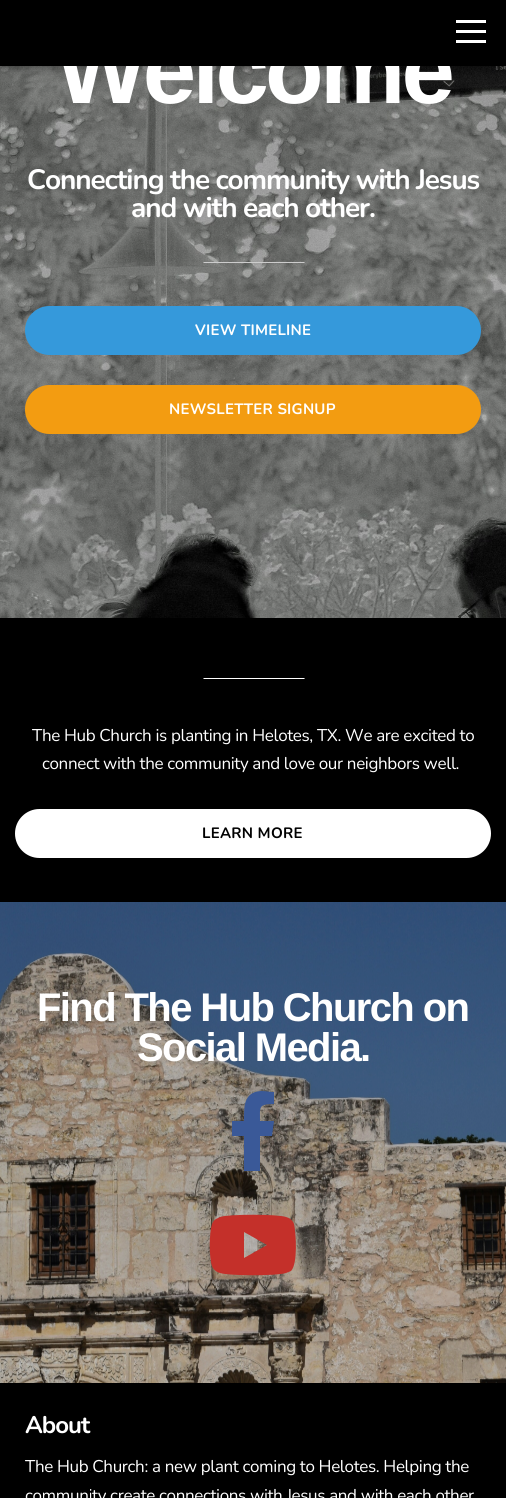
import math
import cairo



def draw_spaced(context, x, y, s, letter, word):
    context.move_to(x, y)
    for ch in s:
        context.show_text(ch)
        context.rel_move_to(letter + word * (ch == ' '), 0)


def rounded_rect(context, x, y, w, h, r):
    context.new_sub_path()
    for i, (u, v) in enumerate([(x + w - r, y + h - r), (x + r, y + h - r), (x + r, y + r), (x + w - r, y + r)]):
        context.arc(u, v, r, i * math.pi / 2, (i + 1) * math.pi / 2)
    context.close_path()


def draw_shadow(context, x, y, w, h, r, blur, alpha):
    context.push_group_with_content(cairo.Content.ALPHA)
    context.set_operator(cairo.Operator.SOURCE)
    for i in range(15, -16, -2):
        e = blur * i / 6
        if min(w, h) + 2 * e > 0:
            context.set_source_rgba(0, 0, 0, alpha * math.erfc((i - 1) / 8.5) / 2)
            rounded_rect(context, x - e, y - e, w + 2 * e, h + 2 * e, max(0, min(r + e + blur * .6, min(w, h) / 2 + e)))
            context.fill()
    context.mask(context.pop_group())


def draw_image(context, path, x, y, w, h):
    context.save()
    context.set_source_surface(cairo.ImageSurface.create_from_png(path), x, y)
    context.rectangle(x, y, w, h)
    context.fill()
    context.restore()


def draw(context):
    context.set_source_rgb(1, 1, 1)
    context.paint()
    draw_image(context, "images/1.png", 0, 66, 506, 552)
    context.set_source_rgb(0, 0, 0)
    draw_shadow(context, 0, 0, 506, 66, 0, 7.5, 0.5)
    context.set_source_rgb(204 / 255, 204 / 255, 204 / 255)
    context.new_path()
    context.move_to(305, 263)
    context.line_to(203, 263)
    context.line_to(204, 262)
    context.line_to(304, 262)
    context.close_path()
    context.fill()
    context.set_source_rgb(53 / 255, 153 / 255, 219 / 255)
    rounded_rect(context, 25, 306, 456, 49, 24.5)
    context.fill()
    context.set_source_rgb(243 / 255, 156 / 255, 17 / 255)
    rounded_rect(context, 25, 385, 456, 49, 24.5)
    context.fill()
    context.set_source_rgb(0, 0, 0)
    context.rectangle(0, 618, 506, 284)
    context.fill()
    context.set_source_rgb(1, 1, 1)
    context.new_path()
    context.move_to(305, 679)
    context.line_to(203, 679)
    context.line_to(204, 678)
    context.line_to(304, 678)
    context.close_path()
    context.fill()
    rounded_rect(context, 15, 809, 476, 49, 24.5)
    context.fill()
    draw_image(context, "images/2.png", 0, 902, 506, 481)
    context.set_source_rgb(58 / 255, 89 / 255, 152 / 255)
    context.new_path()
    context.move_to(272, 1136)
    context.line_to(274, 1121)
    context.line_to(260, 1121)
    context.curve_to(260, 1107, 258, 1104, 274, 1104)
    context.line_to(274, 1092)
    context.curve_to(270, 1092, 266, 1091, 261, 1091)
    context.curve_to(243, 1092, 244, 1108, 244, 1121)
    context.line_to(232, 1121)
    context.line_to(232, 1136)
    context.line_to(244, 1136)
    context.line_to(244, 1171)
    context.line_to(260, 1171)
    context.line_to(260, 1136)
    context.close_path()
    context.fill()
    context.set_source_rgb(196 / 255, 48 / 255, 42 / 255)
    context.new_path()
    context.move_to(294, 1224)
    context.curve_to(293, 1221, 290, 1218, 286, 1217)
    context.curve_to(278, 1214, 228, 1214, 220, 1217)
    context.line_to(216, 1219)
    context.curve_to(214, 1220, 213, 1222, 212, 1224)
    context.curve_to(209, 1233, 209, 1258, 212, 1266)
    context.curve_to(213, 1269, 216, 1272, 220, 1273)
    context.curve_to(229, 1276, 277, 1276, 286, 1273)
    context.line_to(291, 1271)
    context.curve_to(298, 1264, 296, 1233, 294, 1224)
    context.close_path()
    context.move_to(244, 1258)
    context.line_to(244, 1232)
    context.line_to(267, 1245)
    context.close_path()
    context.fill()
    context.set_source_rgb(0, 0, 0)
    context.rectangle(0, 1383, 506, 115)
    context.fill()
    context.select_font_face("Liberation Sans", cairo.FontSlant.NORMAL, cairo.FontWeight.BOLD)
    context.set_font_size(96)
    context.set_source_rgb(1, 1, 1)
    draw_spaced(context, 56, 103, "Welcome", -3.75, 0)
    context.set_source_rgb(0, 0, 0)
    context.rectangle(0, 0, 506, 66)
    context.fill()
    context.set_source_rgb(1, 1, 1)
    context.rectangle(456, 40, 30, 3)
    context.fill()
    context.rectangle(456, 30, 30, 3)
    context.fill()
    context.rectangle(456, 20, 30, 3)
    context.fill()
    context.select_font_face("Nunito", cairo.FontSlant.NORMAL, cairo.FontWeight.BOLD)
    context.set_font_size(28)
    draw_spaced(context, 27, 189, "Connecting the community with Jesus", -1.1, 0)
    draw_spaced(context, 131, 217, "and with each other.", -1.1, 0)
    context.set_font_size(15)
    draw_spaced(context, 195, 335, "VIEW TIMELINE", 0.25, 0)
    draw_spaced(context, 169, 414, "NEWSLETTER SIGNUP", 0.25, 0)
    context.select_font_face("Nunito")
    context.set_font_size(17)
    draw_spaced(context, 32, 741, "The Hub Church is planting in Helotes, TX. We are excited to", -0.35, 0)
    draw_spaced(context, 42, 769, "connect with the community and love our neighbors well.", -0.35, 0)
    context.select_font_face("Nunito", cairo.FontSlant.NORMAL, cairo.FontWeight.BOLD)
    context.set_font_size(15)
    context.set_source_rgb(0, 0, 0)
    draw_spaced(context, 202, 838, "LEARN MORE", 0.25, 0)
    context.select_font_face("Liberation Sans", cairo.FontSlant.NORMAL, cairo.FontWeight.BOLD)
    context.set_font_size(40)
    context.set_source_rgb(1, 1, 1)
    draw_spaced(context, 37, 1021, "Find The Hub Church on", -1.6, 0)
    draw_spaced(context, 137, 1061, "Social Media.", -1.6, 0)
    context.select_font_face("Nunito", cairo.FontSlant.NORMAL, cairo.FontWeight.BOLD)
    context.set_font_size(24)
    draw_spaced(context, 25, 1433, "About", -1, 0)
    context.select_font_face("Nunito")
    context.set_font_size(17)
    draw_spaced(context, 25, 1472, "The Hub Church: a new plant coming to Helotes. Helping the", -0.35, 0)
    draw_spaced(context, 25, 1501, "community create connections with Jesus and with each other.", -0.35, 0)


surface = cairo.ImageSurface(cairo.Format.RGB24, 506, 1498)
context = cairo.Context(surface)
options = cairo.FontOptions()
options.set_hint_metrics(cairo.HintMetrics.OFF)
options.set_hint_style(cairo.HintStyle.NONE)
context.set_font_options(options)
context.set_miter_limit(4)
draw(context)
surface.write_to_png("out.png")
